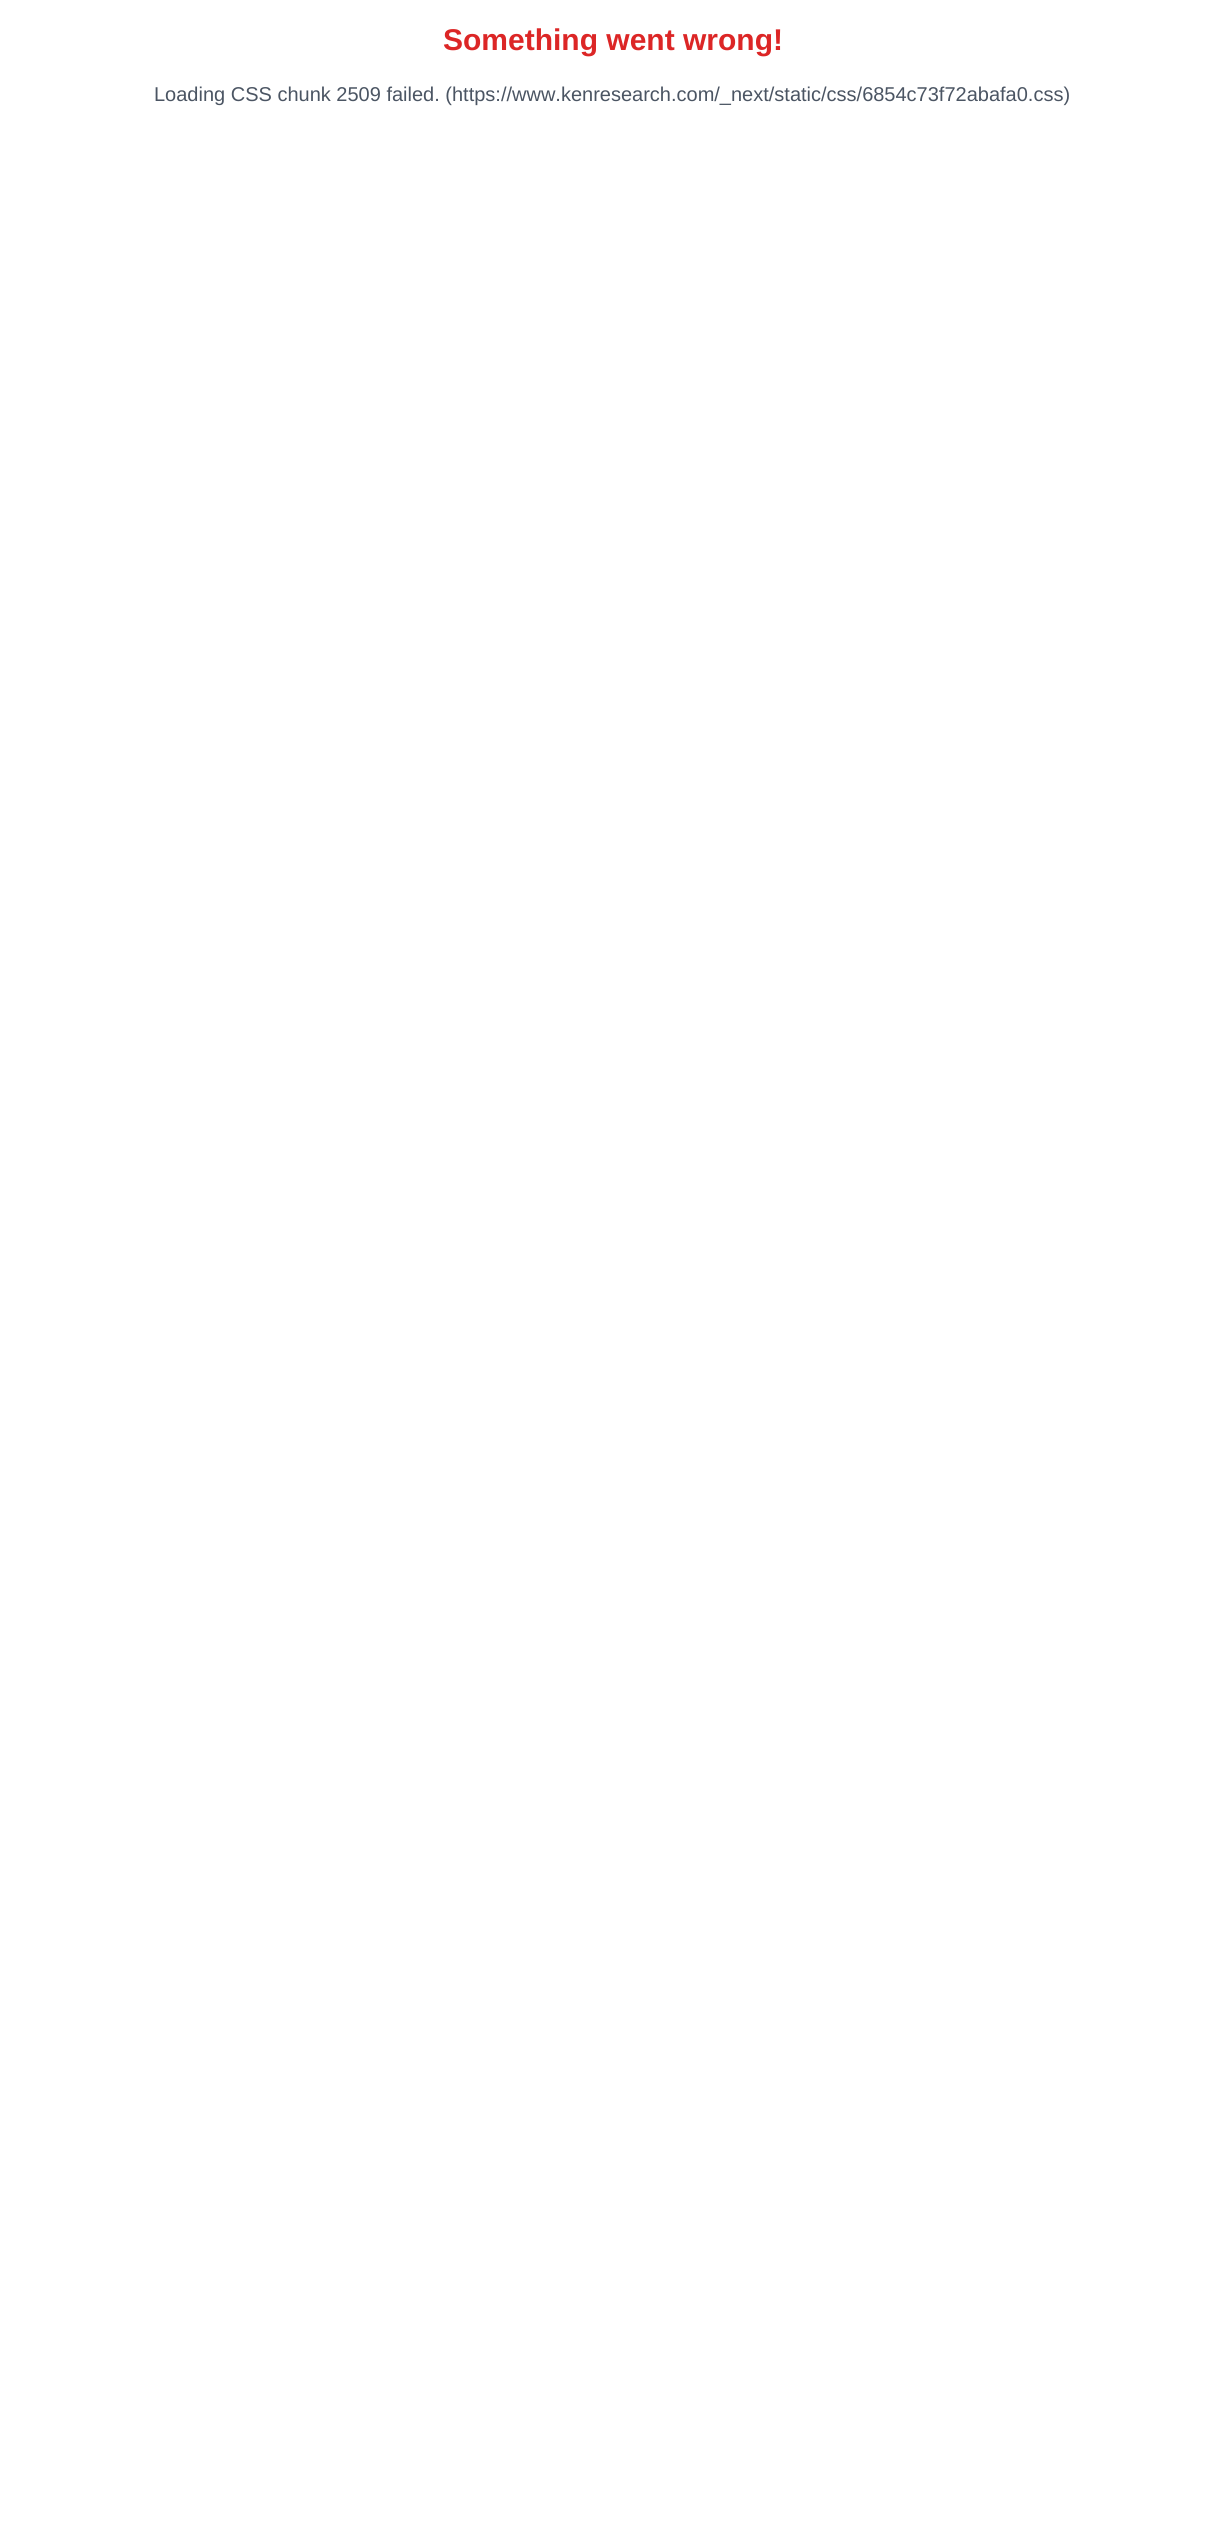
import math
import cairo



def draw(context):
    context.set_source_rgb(1, 1, 1)
    context.paint()
    context.select_font_face("Liberation Sans", cairo.FontSlant.NORMAL, cairo.FontWeight.BOLD)
    context.set_font_size(30)
    context.set_source_rgb(220 / 255, 38 / 255, 38 / 255)
    context.move_to(443, 50)
    context.show_text("Something went wrong!")
    context.select_font_face("Liberation Sans")
    context.set_font_size(20)
    context.set_source_rgb(75 / 255, 85 / 255, 99 / 255)
    context.move_to(154, 101)
    context.show_text("Loading CSS chunk 2509 failed. (https://www.kenresearch.com/_next/static/css/6854c73f72abafa0.css)")


surface = cairo.ImageSurface(cairo.Format.RGB24, 1225, 2548)
context = cairo.Context(surface)
options = cairo.FontOptions()
options.set_hint_metrics(cairo.HintMetrics.OFF)
options.set_hint_style(cairo.HintStyle.NONE)
context.set_font_options(options)
context.set_miter_limit(4)
draw(context)
surface.write_to_png("out.png")
